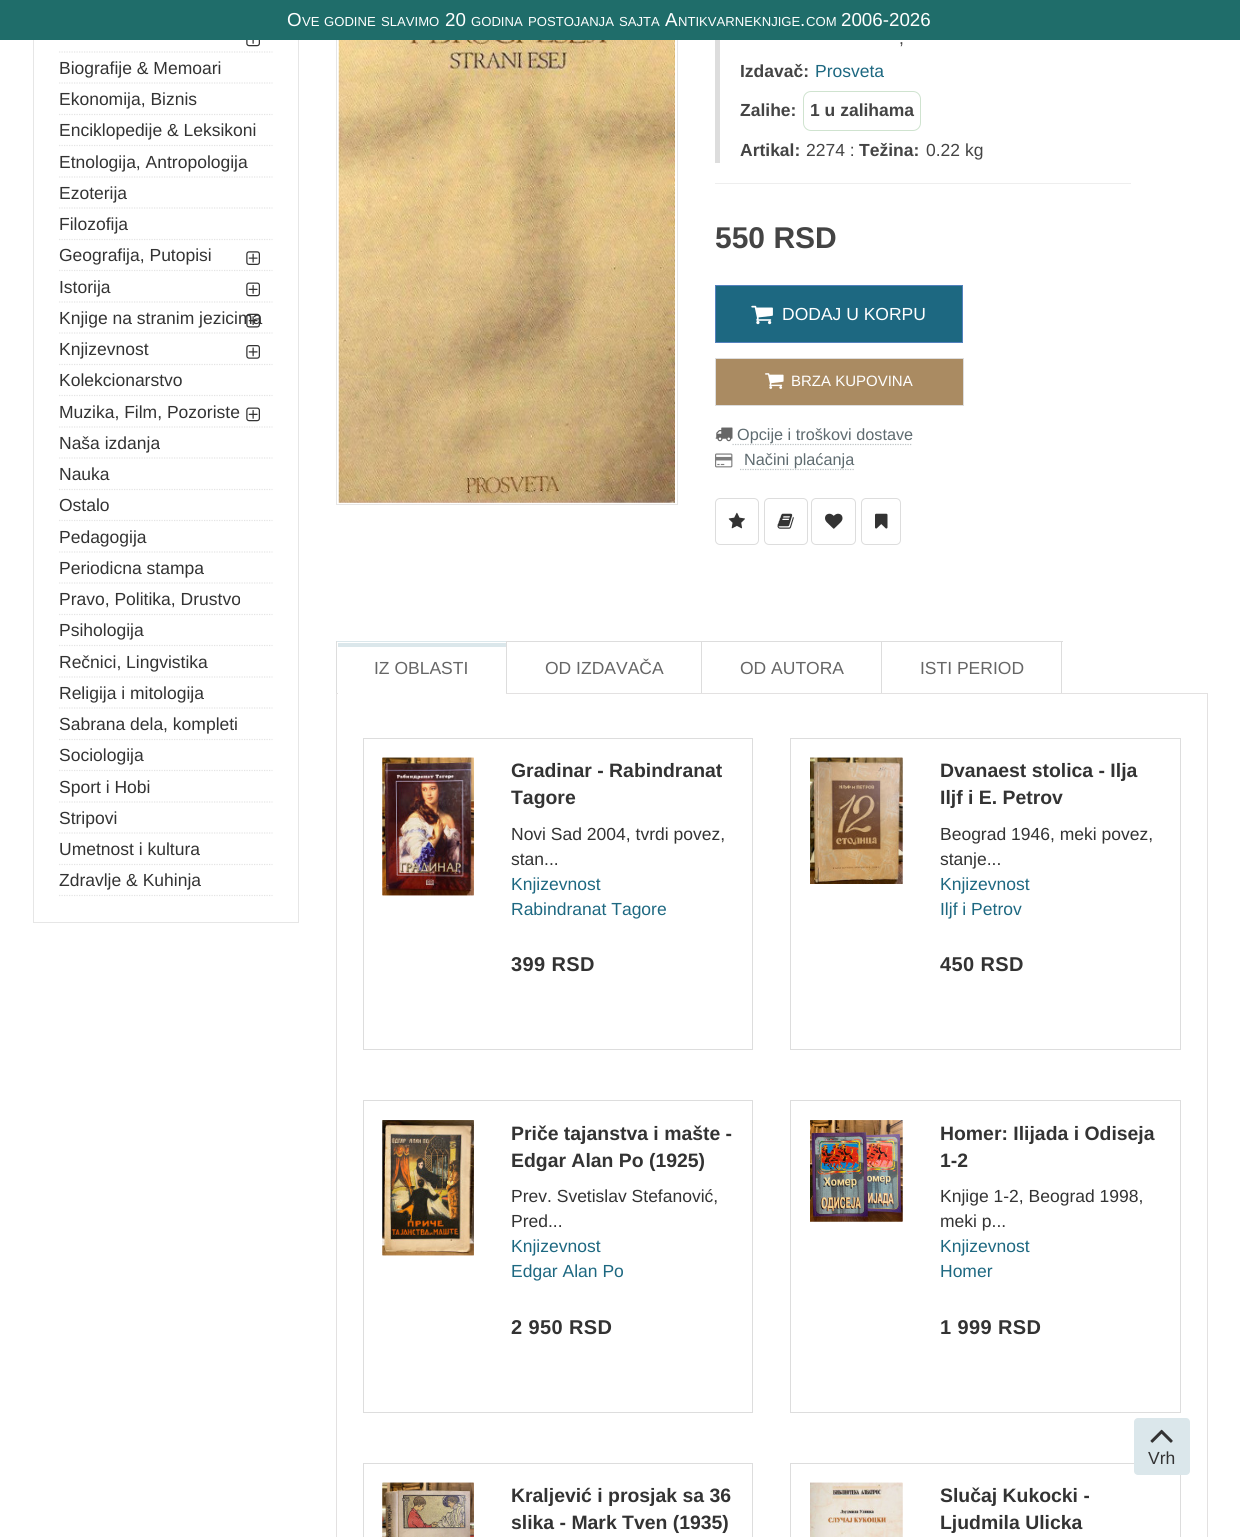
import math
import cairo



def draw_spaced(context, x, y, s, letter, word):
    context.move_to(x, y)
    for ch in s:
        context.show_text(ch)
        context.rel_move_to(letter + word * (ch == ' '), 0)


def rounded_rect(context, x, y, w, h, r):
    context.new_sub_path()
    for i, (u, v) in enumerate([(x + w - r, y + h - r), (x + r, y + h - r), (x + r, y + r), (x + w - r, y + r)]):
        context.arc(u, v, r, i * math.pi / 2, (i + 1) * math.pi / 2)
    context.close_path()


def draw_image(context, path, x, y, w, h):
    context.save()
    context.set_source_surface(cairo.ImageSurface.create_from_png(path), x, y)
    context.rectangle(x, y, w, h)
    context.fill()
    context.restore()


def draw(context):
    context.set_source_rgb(1, 1, 1)
    context.paint()
    context.rectangle(33.5, -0.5, 265, 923)
    context.set_source_rgb(230 / 255, 230 / 255, 230 / 255)
    context.set_line_width(1)
    context.stroke()
    context.rectangle(336.5, -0.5, 341, 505)
    context.stroke()
    context.set_source_rgb(31 / 255, 109 / 255, 106 / 255)
    context.rectangle(0, 0, 1240, 40)
    context.fill()
    context.new_path()
    context.move_to(59, 52)
    context.line_to(272.5, 52)
    context.set_source_rgb(228 / 255, 228 / 255, 228 / 255)
    context.set_line_width(1.2)
    context.set_dash([1.25, 1.25])
    context.stroke()
    draw_image(context, "images/1.png", 246, 40, 14, 7)
    context.new_path()
    context.move_to(59, 83)
    context.line_to(272.5, 83)
    context.stroke()
    context.new_path()
    context.move_to(59, 114.5)
    context.line_to(272.5, 114.5)
    context.stroke()
    context.new_path()
    context.move_to(59, 145.5)
    context.line_to(272.5, 145.5)
    context.stroke()
    context.new_path()
    context.move_to(59, 177)
    context.line_to(272.5, 177)
    context.stroke()
    context.new_path()
    context.move_to(59, 208)
    context.line_to(272.5, 208)
    context.stroke()
    context.new_path()
    context.move_to(59, 239.5)
    context.line_to(272.5, 239.5)
    context.stroke()
    context.new_path()
    context.move_to(59, 270.5)
    context.line_to(272.5, 270.5)
    context.stroke()
    draw_image(context, "images/2.png", 246, 251, 14, 14)
    context.new_path()
    context.move_to(59, 302)
    context.line_to(272.5, 302)
    context.stroke()
    draw_image(context, "images/3.png", 246, 282, 14, 15)
    context.new_path()
    context.move_to(59, 333)
    context.line_to(272.5, 333)
    context.stroke()
    context.new_path()
    context.move_to(59, 364.5)
    context.line_to(272.5, 364.5)
    context.stroke()
    draw_image(context, "images/5.png", 246, 345, 14, 14)
    context.new_path()
    context.move_to(59, 395.5)
    context.line_to(272.5, 395.5)
    context.stroke()
    context.new_path()
    context.move_to(59, 427)
    context.line_to(272.5, 427)
    context.stroke()
    draw_image(context, "images/3.png", 246, 407, 14, 15)
    context.new_path()
    context.move_to(59, 458)
    context.line_to(272.5, 458)
    context.stroke()
    context.new_path()
    context.move_to(59, 489.5)
    context.line_to(272.5, 489.5)
    context.stroke()
    context.new_path()
    context.move_to(59, 520.5)
    context.line_to(272.5, 520.5)
    context.stroke()
    context.new_path()
    context.move_to(59, 552)
    context.line_to(272.5, 552)
    context.stroke()
    context.new_path()
    context.move_to(59, 583)
    context.line_to(272.5, 583)
    context.stroke()
    context.new_path()
    context.move_to(59, 614.5)
    context.line_to(272.5, 614.5)
    context.stroke()
    context.new_path()
    context.move_to(59, 645.5)
    context.line_to(272.5, 645.5)
    context.stroke()
    context.new_path()
    context.move_to(59, 677)
    context.line_to(272.5, 677)
    context.stroke()
    context.new_path()
    context.move_to(59, 708)
    context.line_to(272.5, 708)
    context.stroke()
    context.new_path()
    context.move_to(59, 739.5)
    context.line_to(272.5, 739.5)
    context.stroke()
    context.new_path()
    context.move_to(59, 770.5)
    context.line_to(272.5, 770.5)
    context.stroke()
    context.new_path()
    context.move_to(59, 802)
    context.line_to(272.5, 802)
    context.stroke()
    context.new_path()
    context.move_to(59, 833)
    context.line_to(272.5, 833)
    context.stroke()
    context.new_path()
    context.move_to(59, 864.5)
    context.line_to(272.5, 864.5)
    context.stroke()
    context.new_path()
    context.move_to(59, 895.5)
    context.line_to(272.5, 895.5)
    context.stroke()
    draw_image(context, "images/6.png", 338, 40, 337, 463)
    context.set_source_rgb(238 / 255, 238 / 255, 238 / 255)
    context.rectangle(715, 183, 416, 1)
    context.fill()
    context.set_source_rgb(221 / 255, 221 / 255, 221 / 255)
    context.rectangle(715, 40, 5, 123)
    context.fill()
    rounded_rect(context, 803.5, 91.5, 117, 39, 7.5)
    context.set_source_rgb(207 / 255, 227 / 255, 207 / 255)
    context.set_line_width(1)
    context.set_dash([])
    context.stroke()
    context.set_source_rgb(29 / 255, 104 / 255, 129 / 255)
    context.rectangle(715.5, 285.5, 247, 57)
    context.fill_preserve()
    context.set_source_rgb(83 / 255, 129 / 255, 189 / 255)
    context.stroke()
    draw_image(context, "images/7.png", 751, 305, 22, 20)
    context.set_source_rgb(170 / 255, 139 / 255, 98 / 255)
    context.rectangle(715.5, 358.5, 248, 47)
    context.fill_preserve()
    context.set_source_rgb(221 / 255, 221 / 255, 221 / 255)
    context.stroke()
    draw_image(context, "images/8.png", 765, 373, 19, 16)
    draw_image(context, "images/9.png", 715, 427, 18, 15)
    context.new_path()
    context.move_to(732.5, 444.5)
    context.line_to(912.5, 444.5)
    context.set_source_rgb(191 / 255, 196 / 255, 198 / 255)
    context.set_line_width(1.2)
    context.set_dash([1.25, 1.25])
    context.stroke()
    draw_image(context, "images/10.png", 715, 453, 18, 15)
    context.new_path()
    context.move_to(740, 469.5)
    context.line_to(854, 469.5)
    context.stroke()
    rounded_rect(context, 715.5, 498.5, 43, 46, 4.5)
    context.set_source_rgb(221 / 255, 221 / 255, 221 / 255)
    context.set_line_width(1)
    context.set_dash([])
    context.stroke()
    draw_image(context, "images/11.png", 728, 512, 17, 17)
    rounded_rect(context, 764.5, 498.5, 43, 46, 4.5)
    context.stroke()
    draw_image(context, "images/12.png", 777, 513, 17, 16)
    rounded_rect(context, 811.5, 498.5, 44, 46, 4.5)
    context.stroke()
    draw_image(context, "images/13.png", 825, 513, 18, 16)
    rounded_rect(context, 861.5, 498.5, 39, 46, 4.5)
    context.stroke()
    draw_image(context, "images/14.png", 875, 513, 13, 16)
    context.set_source_rgb(219 / 255, 231 / 255, 235 / 255)
    context.rectangle(336, 641, 172, 1)
    context.fill()
    context.set_source_rgb(221 / 255, 221 / 255, 221 / 255)
    context.rectangle(336, 641, 1, 52)
    context.fill()
    context.set_source_rgb(219 / 255, 231 / 255, 235 / 255)
    context.rectangle(338, 643, 168, 4)
    context.fill()
    context.rectangle(336.5, 693.5, 871, 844)
    context.set_source_rgb(227 / 255, 225 / 255, 225 / 255)
    context.stroke()
    context.set_source_rgb(1, 1, 1)
    context.rectangle(338, 693, 168, 1)
    context.fill()
    context.set_source_rgb(221 / 255, 221 / 255, 221 / 255)
    context.rectangle(506, 641, 557, 1)
    context.fill()
    context.rectangle(506, 641, 1, 52)
    context.fill()
    context.rectangle(701, 641, 1, 52)
    context.fill()
    context.rectangle(1061, 641, 1, 52)
    context.fill()
    context.rectangle(881, 641, 1, 52)
    context.fill()
    context.rectangle(363.5, 738.5, 389, 311)
    context.stroke()
    draw_image(context, "images/15.png", 382, 757, 92, 139)
    draw_image(context, "images/16.png", 382, 757, 92, 139)
    context.rectangle(790.5, 738.5, 390, 311)
    context.stroke()
    draw_image(context, "images/17.png", 810, 757, 93, 127)
    draw_image(context, "images/18.png", 810, 757, 93, 127)
    context.rectangle(363.5, 1100.5, 389, 312)
    context.stroke()
    draw_image(context, "images/19.png", 382, 1120, 92, 136)
    draw_image(context, "images/20.png", 382, 1120, 92, 136)
    context.rectangle(790.5, 1100.5, 390, 312)
    context.stroke()
    draw_image(context, "images/21.png", 810, 1120, 93, 102)
    draw_image(context, "images/22.png", 810, 1120, 93, 102)
    context.rectangle(363.5, 1463.5, 389, 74)
    context.stroke()
    draw_image(context, "images/23.png", 382, 1482, 92, 55)
    draw_image(context, "images/24.png", 382, 1482, 92, 55)
    context.rectangle(790.5, 1463.5, 390, 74)
    context.stroke()
    draw_image(context, "images/25.png", 810, 1482, 93, 55)
    draw_image(context, "images/26.png", 810, 1482, 93, 55)
    context.set_source_rgb(219 / 255, 231 / 255, 235 / 255)
    rounded_rect(context, 1134, 1418, 56, 57, 4)
    context.fill()
    draw_image(context, "images/27.png", 1150, 1429, 23, 14)
    context.select_font_face("Liberation Sans")
    context.set_font_size(18.75)
    context.set_source_rgb(1, 1, 1)
    context.move_to(287, 26)
    context.show_text("O")
    context.set_font_size(13.1)
    context.move_to(302, 26)
    context.show_text("VE")
    context.move_to(324, 26)
    context.show_text("GODINE")
    context.move_to(381, 26)
    context.show_text("SLAVIMO")
    context.set_font_size(18.75)
    context.move_to(445, 26)
    context.show_text("20")
    context.set_font_size(13.1)
    context.move_to(471, 26)
    context.show_text("GODINA")
    context.move_to(528, 26)
    context.show_text("POSTOJANJA")
    context.move_to(619, 26)
    context.show_text("SAJTA")
    context.set_font_size(18.75)
    context.move_to(665, 26)
    context.show_text("A")
    context.set_font_size(13.1)
    context.move_to(678, 26)
    context.show_text("NTIKVARNEKNJIGE")
    context.set_font_size(18.75)
    context.move_to(800, 26)
    context.show_text(".")
    context.set_font_size(13.1)
    context.move_to(806, 26)
    context.show_text("COM")
    context.set_font_size(18.75)
    context.move_to(841, 26)
    context.show_text("2006-2026")
    context.set_font_size(17.5)
    context.set_source_rgb(51 / 255, 51 / 255, 51 / 255)
    context.move_to(59, 74)
    context.show_text("Biografije & Memoari")
    context.move_to(59, 105)
    context.show_text("Ekonomija, Biznis")
    context.move_to(59, 136)
    context.show_text("Enciklopedije & Leksikoni")
    context.move_to(59, 168)
    context.show_text("Etnologija, Antropologija")
    context.move_to(59, 199)
    context.show_text("Ezoterija")
    context.move_to(59, 230)
    context.show_text("Filozofija")
    context.move_to(59, 261)
    context.show_text("Geografija, Putopisi")
    context.move_to(59, 293)
    context.show_text("Istorija")
    context.move_to(59, 324)
    context.show_text("Knjige na stranim jezicima")
    draw_image(context, "images/4.png", 246, 313, 14, 15)
    context.move_to(59, 355)
    context.show_text("Knjizevnost")
    context.move_to(59, 386)
    context.show_text("Kolekcionarstvo")
    context.move_to(59, 418)
    context.show_text("Muzika, Film, Pozoriste")
    context.move_to(59, 449)
    context.show_text("Naša izdanja")
    context.move_to(59, 480)
    context.show_text("Nauka")
    context.move_to(59, 511)
    context.show_text("Ostalo")
    context.move_to(59, 543)
    context.show_text("Pedagogija")
    context.move_to(59, 574)
    context.show_text("Periodicna stampa")
    context.move_to(59, 605)
    context.show_text("Pravo, Politika, Drustvo")
    context.move_to(59, 636)
    context.show_text("Psihologija")
    context.move_to(59, 668)
    context.show_text("Rečnici, Lingvistika")
    context.move_to(59, 699)
    context.show_text("Religija i mitologija")
    context.move_to(59, 730)
    context.show_text("Sabrana dela, kompleti")
    context.move_to(59, 761)
    context.show_text("Sociologija")
    context.move_to(59, 793)
    context.show_text("Sport i Hobi")
    context.move_to(59, 824)
    context.show_text("Stripovi")
    context.move_to(59, 855)
    context.show_text("Umetnost i kultura")
    context.move_to(59, 886)
    context.show_text("Zdravlje & Kuhinja")
    context.set_source_rgb(68 / 255, 68 / 255, 68 / 255)
    context.move_to(899, 44)
    context.show_text(",")
    context.select_font_face("Liberation Sans", cairo.FontSlant.NORMAL, cairo.FontWeight.BOLD)
    context.move_to(740, 77)
    context.show_text("Izdavač:")
    context.select_font_face("Liberation Sans")
    context.set_source_rgb(29 / 255, 104 / 255, 129 / 255)
    context.move_to(815, 77)
    context.show_text("Prosveta")
    context.select_font_face("Liberation Sans", cairo.FontSlant.NORMAL, cairo.FontWeight.BOLD)
    context.set_source_rgb(68 / 255, 68 / 255, 68 / 255)
    context.move_to(740, 116)
    context.show_text("Zalihe:")
    context.move_to(810, 116)
    context.show_text("1 u zalihama")
    context.move_to(740, 156)
    context.show_text("Artikal:")
    context.select_font_face("Liberation Sans")
    context.move_to(806, 156)
    context.show_text("2274 :")
    context.select_font_face("Liberation Sans", cairo.FontSlant.NORMAL, cairo.FontWeight.BOLD)
    context.move_to(859, 156)
    context.show_text("Težina:")
    context.select_font_face("Liberation Sans")
    context.move_to(926, 156)
    context.show_text("0.22 kg")
    context.select_font_face("Liberation Sans", cairo.FontSlant.NORMAL, cairo.FontWeight.BOLD)
    context.set_font_size(30)
    context.move_to(715, 248)
    context.show_text("550 RSD")
    context.select_font_face("Liberation Sans")
    context.set_font_size(17.5)
    context.set_source_rgb(1, 1, 1)
    context.move_to(782, 320)
    context.show_text("DODAJ U KORPU")
    context.set_font_size(15)
    context.move_to(791, 386)
    context.show_text("BRZA KUPOVINA")
    context.set_font_size(16.25)
    context.set_source_rgb(95 / 255, 107 / 255, 112 / 255)
    context.move_to(737, 440)
    context.show_text("Opcije i troškovi dostave")
    context.move_to(744, 465)
    context.show_text("Načini plaćanja")
    context.set_font_size(17.5)
    context.set_source_rgb(102 / 255, 102 / 255, 102 / 255)
    context.move_to(374, 674)
    context.show_text("IZ OBLASTI")
    context.move_to(545, 674)
    context.show_text("OD IZDAVAČA")
    context.move_to(740, 674)
    context.show_text("OD AUTORA")
    context.move_to(920, 674)
    context.show_text("ISTI PERIOD")
    context.select_font_face("Liberation Sans", cairo.FontSlant.NORMAL, cairo.FontWeight.BOLD)
    context.set_font_size(19.4)
    context.set_source_rgb(51 / 255, 51 / 255, 51 / 255)
    context.move_to(511, 777)
    context.show_text("Gradinar - Rabindranat")
    context.move_to(511, 804)
    context.show_text("Tagore")
    context.select_font_face("Liberation Sans")
    context.set_font_size(17.5)
    context.move_to(511, 840)
    context.show_text("Novi Sad 2004, tvrdi povez,")
    context.move_to(511, 865)
    context.show_text("stan...")
    context.set_source_rgb(29 / 255, 104 / 255, 129 / 255)
    context.move_to(511, 890)
    context.show_text("Knjizevnost")
    context.move_to(511, 915)
    context.show_text("Rabindranat Tagore")
    context.select_font_face("Liberation Sans", cairo.FontSlant.NORMAL, cairo.FontWeight.BOLD)
    context.set_font_size(20)
    context.set_source_rgb(51 / 255, 51 / 255, 51 / 255)
    draw_spaced(context, 511, 971, "399 RSD", 0.4, 0)
    context.set_font_size(19.4)
    context.move_to(940, 777)
    context.show_text("Dvanaest stolica - Ilja")
    context.move_to(940, 804)
    context.show_text("Iljf i E. Petrov")
    context.select_font_face("Liberation Sans")
    context.set_font_size(17.5)
    context.move_to(940, 840)
    context.show_text("Beograd 1946, meki povez,")
    context.move_to(940, 865)
    context.show_text("stanje...")
    context.set_source_rgb(29 / 255, 104 / 255, 129 / 255)
    context.move_to(940, 890)
    context.show_text("Knjizevnost")
    context.move_to(940, 915)
    context.show_text("Iljf i Petrov")
    context.select_font_face("Liberation Sans", cairo.FontSlant.NORMAL, cairo.FontWeight.BOLD)
    context.set_font_size(20)
    context.set_source_rgb(51 / 255, 51 / 255, 51 / 255)
    draw_spaced(context, 940, 971, "450 RSD", 0.4, 0)
    context.set_font_size(19.4)
    context.move_to(511, 1140)
    context.show_text("Priče tajanstva i mašte -")
    context.move_to(511, 1167)
    context.show_text("Edgar Alan Po (1925)")
    context.select_font_face("Liberation Sans")
    context.set_font_size(17.5)
    context.move_to(511, 1202)
    context.show_text("Prev. Svetislav Stefanović,")
    context.move_to(511, 1227)
    context.show_text("Pred...")
    context.set_source_rgb(29 / 255, 104 / 255, 129 / 255)
    context.move_to(511, 1252)
    context.show_text("Knjizevnost")
    context.move_to(511, 1277)
    context.show_text("Edgar Alan Po")
    context.select_font_face("Liberation Sans", cairo.FontSlant.NORMAL, cairo.FontWeight.BOLD)
    context.set_font_size(20)
    context.set_source_rgb(51 / 255, 51 / 255, 51 / 255)
    draw_spaced(context, 511, 1334, "2 950 RSD", 0.4, 0)
    context.set_font_size(19.4)
    context.move_to(940, 1140)
    context.show_text("Homer: Ilijada i Odiseja")
    context.move_to(940, 1167)
    context.show_text("1-2")
    context.select_font_face("Liberation Sans")
    context.set_font_size(17.5)
    context.move_to(940, 1202)
    context.show_text("Knjige 1-2, Beograd 1998,")
    context.move_to(940, 1227)
    context.show_text("meki p...")
    context.set_source_rgb(29 / 255, 104 / 255, 129 / 255)
    context.move_to(940, 1252)
    context.show_text("Knjizevnost")
    context.move_to(940, 1277)
    context.show_text("Homer")
    context.select_font_face("Liberation Sans", cairo.FontSlant.NORMAL, cairo.FontWeight.BOLD)
    context.set_font_size(20)
    context.set_source_rgb(51 / 255, 51 / 255, 51 / 255)
    draw_spaced(context, 940, 1334, "1 999 RSD", 0.4, 0)
    context.set_font_size(19.4)
    context.move_to(511, 1502)
    context.show_text("Kraljević i prosjak sa 36")
    context.move_to(511, 1529)
    context.show_text("slika - Mark Tven (1935)")
    context.move_to(940, 1502)
    context.show_text("Slučaj Kukocki -")
    context.move_to(940, 1529)
    context.show_text("Ljudmila Ulicka")
    context.select_font_face("Liberation Sans")
    context.set_font_size(17.5)
    context.move_to(1148, 1464)
    context.show_text("Vrh")


surface = cairo.ImageSurface(cairo.Format.RGB24, 1240, 1537)
context = cairo.Context(surface)
options = cairo.FontOptions()
options.set_hint_metrics(cairo.HintMetrics.OFF)
options.set_hint_style(cairo.HintStyle.NONE)
context.set_font_options(options)
context.set_miter_limit(4)
draw(context)
surface.write_to_png("out.png")
